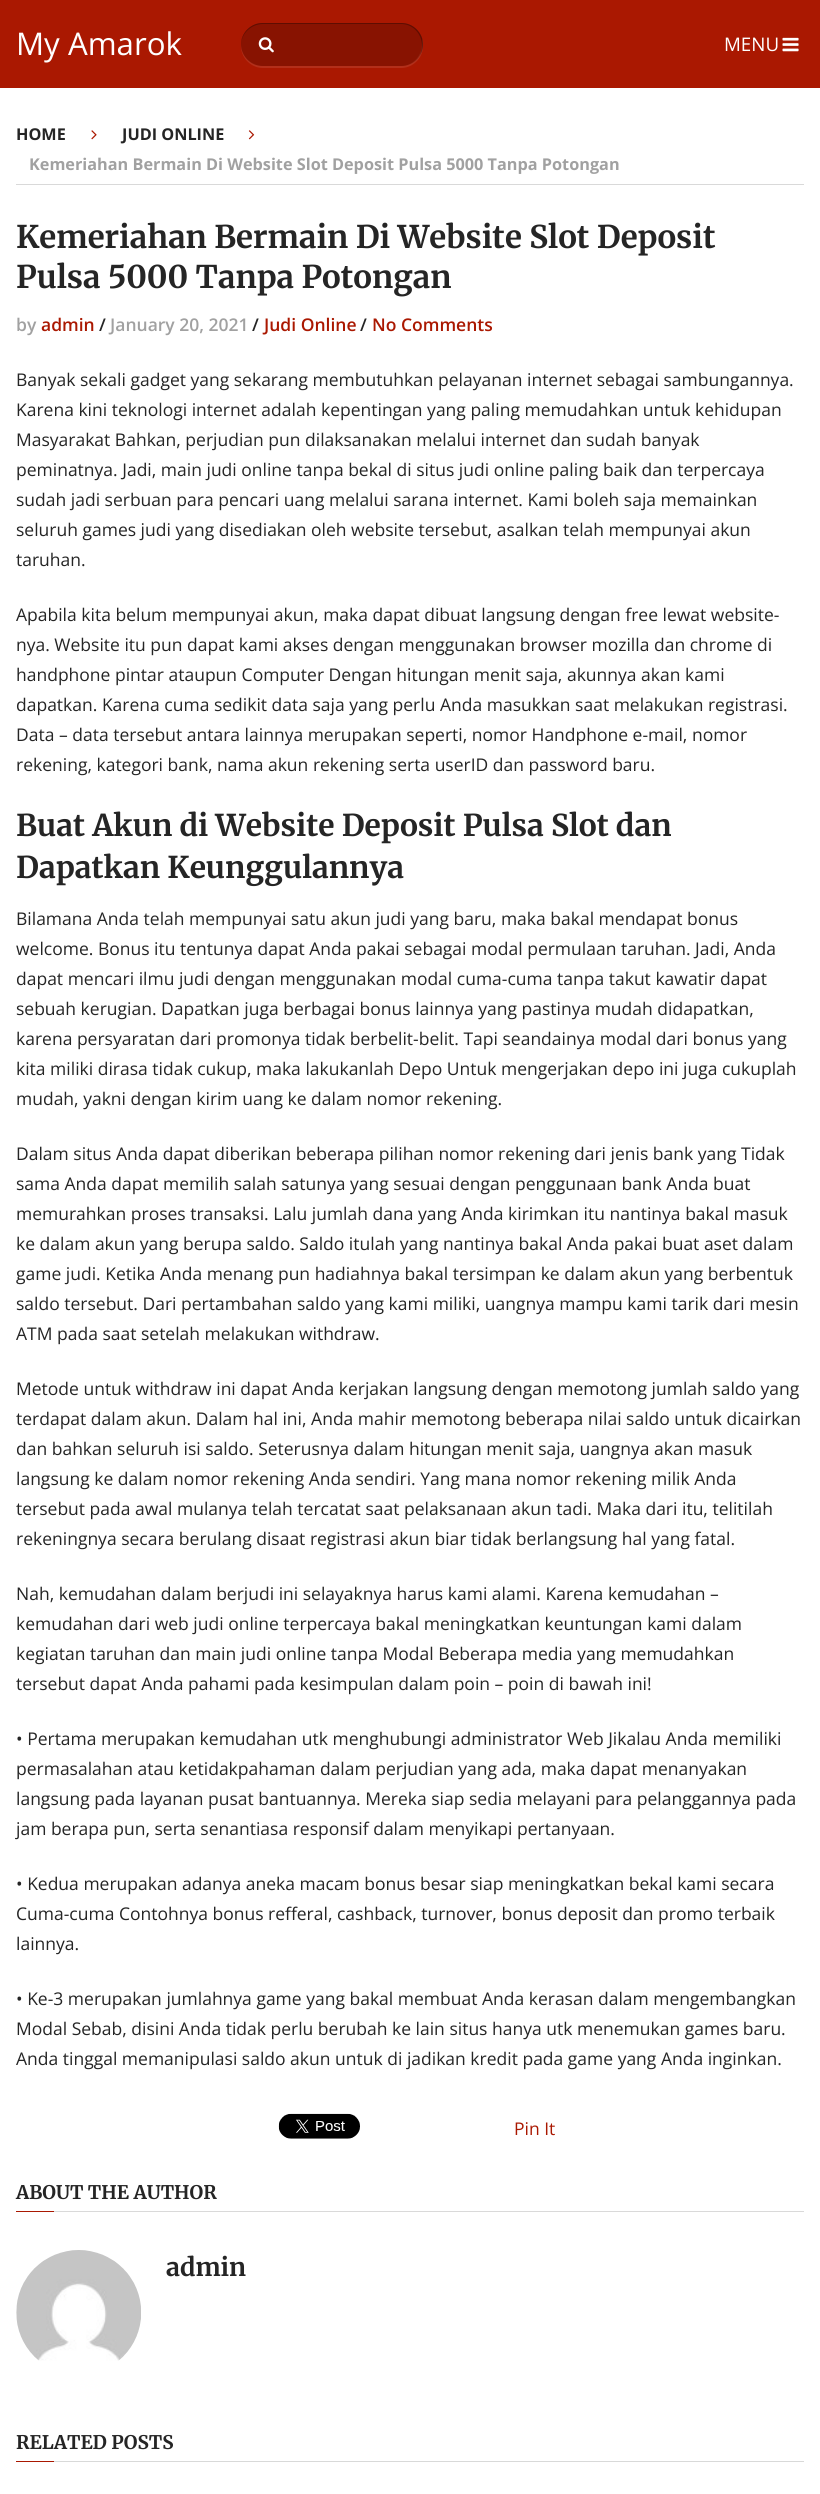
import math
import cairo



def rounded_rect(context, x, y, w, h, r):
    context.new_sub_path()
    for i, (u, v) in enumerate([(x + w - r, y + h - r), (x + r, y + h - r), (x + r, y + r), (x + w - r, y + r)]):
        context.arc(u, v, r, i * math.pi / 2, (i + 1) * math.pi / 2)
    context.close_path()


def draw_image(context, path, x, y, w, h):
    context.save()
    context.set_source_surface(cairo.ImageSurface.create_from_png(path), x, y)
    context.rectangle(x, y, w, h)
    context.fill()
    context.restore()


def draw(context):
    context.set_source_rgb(1, 1, 1)
    context.paint()
    context.set_source_rgb(170 / 255, 24 / 255, 1 / 255)
    context.rectangle(0, 0, 820, 88)
    context.fill()
    context.set_source_rgb(179 / 255, 47 / 255, 26 / 255)
    context.new_path()
    context.move_to(241, 42)
    context.line_to(241, 46)
    context.curve_to(241, 58, 251, 68, 263, 68)
    context.line_to(401, 68)
    context.curve_to(413, 68, 423, 58, 423, 46)
    context.curve_to(423, 43, 423, 41, 422, 39)
    context.line_to(422, 44)
    context.curve_to(422, 56, 413, 66, 401, 66)
    context.line_to(263, 66)
    context.curve_to(251, 66, 241, 56, 241, 44)
    context.close_path()
    context.fill()
    context.set_source_rgba(0, 0, 0, 0.2)
    rounded_rect(context, 241, 23, 182, 43, 21.5)
    context.fill()
    context.set_source_rgba(0, 0, 0, 0.3)
    context.new_path()
    context.move_to(263, 24)
    context.line_to(401, 24)
    context.curve_to(413, 24, 422, 34, 422, 46)
    context.curve_to(422, 49, 421, 53, 420, 55)
    context.curve_to(422, 52, 423, 48, 423, 44)
    context.curve_to(423, 33, 413, 23, 402, 23)
    context.line_to(262, 23)
    context.curve_to(251, 23, 241, 33, 241, 44)
    context.line_to(241, 45)
    context.curve_to(241, 34, 251, 24, 263, 24)
    context.close_path()
    context.fill()
    draw_image(context, "images/1.png", 258, 37, 16, 16)
    draw_image(context, "images/2.png", 782, 37, 17, 15)
    context.set_source_rgb(217 / 255, 217 / 255, 217 / 255)
    context.rectangle(16, 184, 788, 1)
    context.fill()
    draw_image(context, "images/3.png", 91, 130, 6, 10)
    draw_image(context, "images/4.png", 248, 130, 7, 10)
    draw_image(context, "images/5.png", 278, 2113, 82, 26)
    context.rectangle(54, 2211, 750, 1)
    context.fill()
    context.set_source_rgb(170 / 255, 24 / 255, 1 / 255)
    context.rectangle(16, 2211, 38, 1)
    context.fill()
    draw_image(context, "images/6.png", 16, 2250, 125, 111)
    context.set_source_rgb(217 / 255, 217 / 255, 217 / 255)
    context.rectangle(54, 2461, 750, 1)
    context.fill()
    context.set_source_rgb(170 / 255, 24 / 255, 1 / 255)
    context.rectangle(16, 2461, 38, 1)
    context.fill()
    context.select_font_face("Open Sans")
    context.set_font_size(31.25)
    context.set_source_rgb(1, 1, 1)
    context.move_to(16, 55)
    context.show_text("My Amarok")
    context.set_font_size(18.75)
    context.move_to(724, 51)
    context.show_text("MENU")
    context.select_font_face("Open Sans", cairo.FontSlant.NORMAL, cairo.FontWeight.BOLD)
    context.set_font_size(16.25)
    context.set_source_rgb(37 / 255, 37 / 255, 37 / 255)
    context.move_to(16, 140)
    context.show_text("HOME")
    context.move_to(122, 140)
    context.show_text("JUDI ONLINE")
    context.set_source_rgb(161 / 255, 161 / 255, 161 / 255)
    context.move_to(29, 170)
    context.show_text("Kemeriahan Bermain Di Website Slot Deposit Pulsa 5000 Tanpa Potongan")
    context.select_font_face("Merriweather Light")
    context.set_font_size(31.25)
    context.set_source_rgb(37 / 255, 37 / 255, 37 / 255)
    context.move_to(16, 248)
    context.show_text("Kemeriahan Bermain Di Website Slot Deposit")
    context.move_to(16, 288)
    context.show_text("Pulsa 5000 Tanpa Potongan")
    context.select_font_face("Open Sans SemiBold")
    context.set_font_size(17.5)
    context.set_source_rgb(161 / 255, 161 / 255, 161 / 255)
    context.move_to(16, 331)
    context.show_text("by")
    context.set_source_rgb(170 / 255, 24 / 255, 1 / 255)
    context.move_to(41, 331)
    context.show_text("admin")
    context.set_source_rgb(37 / 255, 37 / 255, 37 / 255)
    context.move_to(99, 331)
    context.show_text("/")
    context.set_source_rgb(161 / 255, 161 / 255, 161 / 255)
    context.move_to(110, 331)
    context.show_text("January 20, 2021")
    context.set_source_rgb(37 / 255, 37 / 255, 37 / 255)
    context.move_to(252, 331)
    context.show_text("/")
    context.set_source_rgb(170 / 255, 24 / 255, 1 / 255)
    context.move_to(264, 331)
    context.show_text("Judi Online")
    context.set_source_rgb(37 / 255, 37 / 255, 37 / 255)
    context.move_to(360, 331)
    context.show_text("/")
    context.set_source_rgb(170 / 255, 24 / 255, 1 / 255)
    context.move_to(372, 331)
    context.show_text("No Comments")
    context.select_font_face("Open Sans")
    context.set_source_rgb(37 / 255, 37 / 255, 37 / 255)
    context.move_to(16, 386)
    context.show_text("Banyak sekali gadget yang sekarang membutuhkan pelayanan internet sebagai sambungannya.")
    context.move_to(16, 416)
    context.show_text("Karena kini teknologi internet adalah kepentingan yang paling memudahkan untuk kehidupan")
    context.move_to(16, 446)
    context.show_text("Masyarakat Bahkan, perjudian pun dilaksanakan melalui internet dan sudah banyak")
    context.move_to(16, 476)
    context.show_text("peminatnya. Jadi, main judi online tanpa bekal di situs judi online paling baik dan terpercaya")
    context.move_to(16, 506)
    context.show_text("sudah jadi serbuan para pencari uang melalui sarana internet. Kami boleh saja memainkan")
    context.move_to(16, 536)
    context.show_text("seluruh games judi yang disediakan oleh website tersebut, asalkan telah mempunyai akun")
    context.move_to(16, 566)
    context.show_text("taruhan.")
    context.move_to(16, 621)
    context.show_text("Apabila kita belum mempunyai akun, maka dapat dibuat langsung dengan free lewat website-")
    context.move_to(16, 651)
    context.show_text("nya. Website itu pun dapat kami akses dengan menggunakan browser mozilla dan chrome di")
    context.move_to(16, 681)
    context.show_text("handphone pintar ataupun Computer Dengan hitungan menit saja, akunnya akan kami")
    context.move_to(16, 711)
    context.show_text("dapatkan. Karena cuma sedikit data saja yang perlu Anda masukkan saat melakukan registrasi.")
    context.move_to(16, 741)
    context.show_text("Data – data tersebut antara lainnya merupakan seperti, nomor Handphone e-mail, nomor")
    context.move_to(16, 771)
    context.show_text("rekening, kategori bank, nama akun rekening serta userID dan password baru.")
    context.select_font_face("Merriweather Light")
    context.set_font_size(30)
    context.move_to(16, 836)
    context.show_text("Buat Akun di Website Deposit Pulsa Slot dan")
    context.move_to(16, 878)
    context.show_text("Dapatkan Keunggulannya")
    context.select_font_face("Open Sans")
    context.set_font_size(17.5)
    context.move_to(16, 925)
    context.show_text("Bilamana Anda telah mempunyai satu akun judi yang baru, maka bakal mendapat bonus")
    context.move_to(16, 955)
    context.show_text("welcome. Bonus itu tentunya dapat Anda pakai sebagai modal permulaan taruhan. Jadi, Anda")
    context.move_to(16, 985)
    context.show_text("dapat mencari ilmu judi dengan menggunakan modal cuma-cuma tanpa takut kawatir dapat")
    context.move_to(16, 1015)
    context.show_text("sebuah kerugian. Dapatkan juga berbagai bonus lainnya yang pastinya mudah didapatkan,")
    context.move_to(16, 1045)
    context.show_text("karena persyaratan dari promonya tidak berbelit-belit. Tapi seandainya modal dari bonus yang")
    context.move_to(16, 1075)
    context.show_text("kita miliki dirasa tidak cukup, maka lakukanlah Depo Untuk mengerjakan depo ini juga cukuplah")
    context.move_to(16, 1105)
    context.show_text("mudah, yakni dengan kirim uang ke dalam nomor rekening.")
    context.move_to(16, 1160)
    context.show_text("Dalam situs Anda dapat diberikan beberapa pilihan nomor rekening dari jenis bank yang Tidak")
    context.move_to(16, 1190)
    context.show_text("sama Anda dapat memilih salah satunya yang sesuai dengan penggunaan bank Anda buat")
    context.move_to(16, 1220)
    context.show_text("memurahkan proses transaksi. Lalu jumlah dana yang Anda kirimkan itu nantinya bakal masuk")
    context.move_to(16, 1250)
    context.show_text("ke dalam akun yang berupa saldo. Saldo itulah yang nantinya bakal Anda pakai buat aset dalam")
    context.move_to(16, 1280)
    context.show_text("game judi. Ketika Anda menang pun hadiahnya bakal tersimpan ke dalam akun yang berbentuk")
    context.move_to(16, 1310)
    context.show_text("saldo tersebut. Dari pertambahan saldo yang kami miliki, uangnya mampu kami tarik dari mesin")
    context.move_to(16, 1340)
    context.show_text("ATM pada saat setelah melakukan withdraw.")
    context.move_to(16, 1395)
    context.show_text("Metode untuk withdraw ini dapat Anda kerjakan langsung dengan memotong jumlah saldo yang")
    context.move_to(16, 1425)
    context.show_text("terdapat dalam akun. Dalam hal ini, Anda mahir memotong beberapa nilai saldo untuk dicairkan")
    context.move_to(16, 1455)
    context.show_text("dan bahkan seluruh isi saldo. Seterusnya dalam hitungan menit saja, uangnya akan masuk")
    context.move_to(16, 1485)
    context.show_text("langsung ke dalam nomor rekening Anda sendiri. Yang mana nomor rekening milik Anda")
    context.move_to(16, 1515)
    context.show_text("tersebut pada awal mulanya telah tercatat saat pelaksanaan akun tadi. Maka dari itu, telitilah")
    context.move_to(16, 1545)
    context.show_text("rekeningnya secara berulang disaat registrasi akun biar tidak berlangsung hal yang fatal.")
    context.move_to(16, 1600)
    context.show_text("Nah, kemudahan dalam berjudi ini selayaknya harus kami alami. Karena kemudahan –")
    context.move_to(16, 1630)
    context.show_text("kemudahan dari web judi online terpercaya bakal meningkatkan keuntungan kami dalam")
    context.move_to(16, 1660)
    context.show_text("kegiatan taruhan dan main judi online tanpa Modal Beberapa media yang memudahkan")
    context.move_to(16, 1690)
    context.show_text("tersebut dapat Anda pahami pada kesimpulan dalam poin – poin di bawah ini!")
    context.move_to(16, 1745)
    context.show_text("• Pertama merupakan kemudahan utk menghubungi administrator Web Jikalau Anda memiliki")
    context.move_to(16, 1775)
    context.show_text("permasalahan atau ketidakpahaman dalam perjudian yang ada, maka dapat menanyakan")
    context.move_to(16, 1805)
    context.show_text("langsung pada layanan pusat bantuannya. Mereka siap sedia melayani para pelanggannya pada")
    context.move_to(16, 1835)
    context.show_text("jam berapa pun, serta senantiasa responsif dalam menyikapi pertanyaan.")
    context.move_to(16, 1890)
    context.show_text("• Kedua merupakan adanya aneka macam bonus besar siap meningkatkan bekal kami secara")
    context.move_to(16, 1920)
    context.show_text("Cuma-cuma Contohnya bonus refferal, cashback, turnover, bonus deposit dan promo terbaik")
    context.move_to(16, 1950)
    context.show_text("lainnya.")
    context.move_to(16, 2005)
    context.show_text("• Ke-3 merupakan jumlahnya game yang bakal membuat Anda kerasan dalam mengembangkan")
    context.move_to(16, 2035)
    context.show_text("Modal Sebab, disini Anda tidak perlu berubah ke lain situs hanya utk menemukan games baru.")
    context.move_to(16, 2065)
    context.show_text("Anda tinggal memanipulasi saldo akun untuk di jadikan kredit pada game yang Anda inginkan.")
    context.set_source_rgb(170 / 255, 24 / 255, 1 / 255)
    context.move_to(514, 2135)
    context.show_text("Pin It")
    context.select_font_face("Merriweather Light")
    context.set_font_size(18.75)
    context.set_source_rgb(37 / 255, 37 / 255, 37 / 255)
    context.move_to(16, 2199)
    context.show_text("ABOUT THE AUTHOR")
    context.set_font_size(25)
    context.move_to(166, 2276)
    context.show_text("admin")
    context.set_font_size(18.75)
    context.move_to(16, 2449)
    context.show_text("RELATED POSTS")


surface = cairo.ImageSurface(cairo.Format.RGB24, 820, 2494)
context = cairo.Context(surface)
options = cairo.FontOptions()
options.set_hint_metrics(cairo.HintMetrics.OFF)
options.set_hint_style(cairo.HintStyle.NONE)
context.set_font_options(options)
context.set_miter_limit(4)
draw(context)
surface.write_to_png("out.png")
